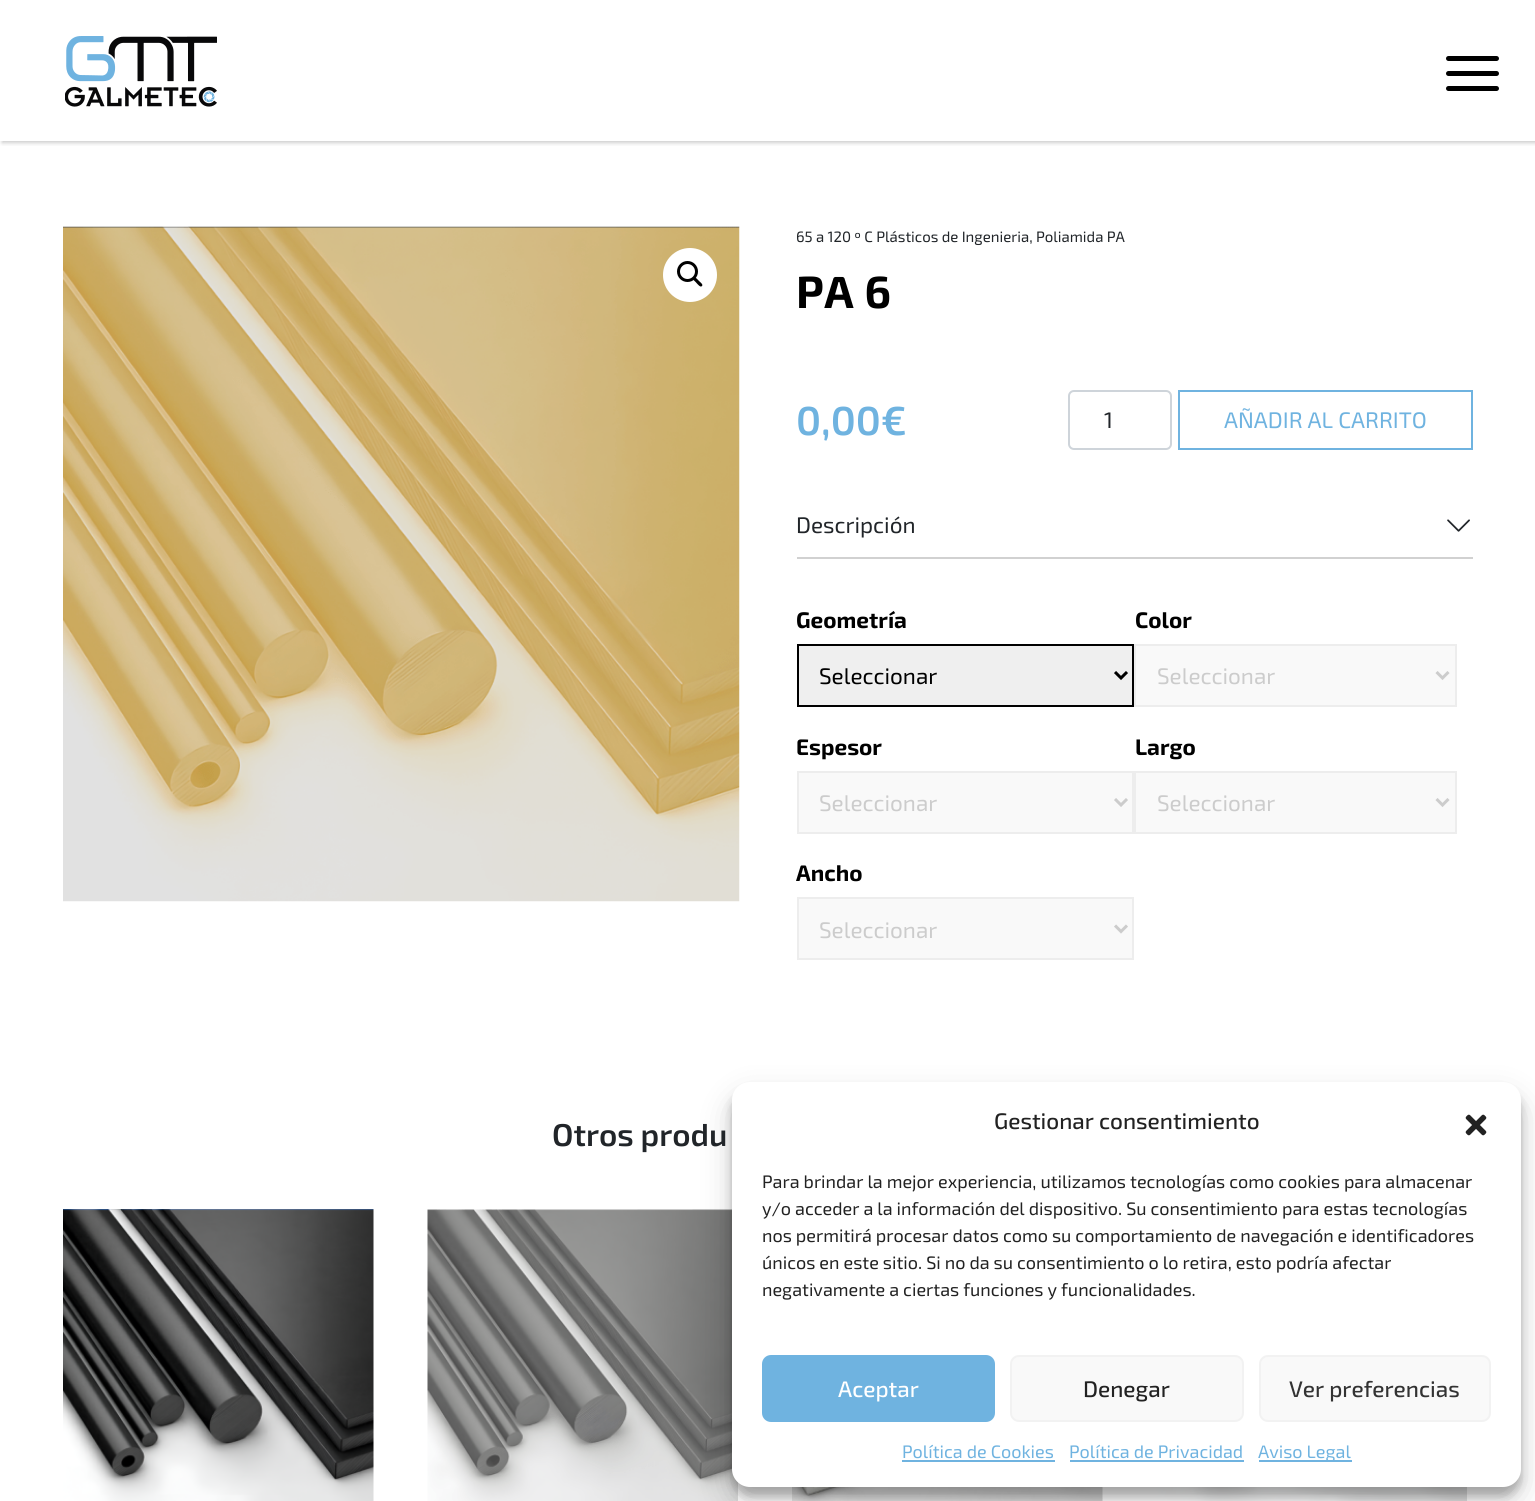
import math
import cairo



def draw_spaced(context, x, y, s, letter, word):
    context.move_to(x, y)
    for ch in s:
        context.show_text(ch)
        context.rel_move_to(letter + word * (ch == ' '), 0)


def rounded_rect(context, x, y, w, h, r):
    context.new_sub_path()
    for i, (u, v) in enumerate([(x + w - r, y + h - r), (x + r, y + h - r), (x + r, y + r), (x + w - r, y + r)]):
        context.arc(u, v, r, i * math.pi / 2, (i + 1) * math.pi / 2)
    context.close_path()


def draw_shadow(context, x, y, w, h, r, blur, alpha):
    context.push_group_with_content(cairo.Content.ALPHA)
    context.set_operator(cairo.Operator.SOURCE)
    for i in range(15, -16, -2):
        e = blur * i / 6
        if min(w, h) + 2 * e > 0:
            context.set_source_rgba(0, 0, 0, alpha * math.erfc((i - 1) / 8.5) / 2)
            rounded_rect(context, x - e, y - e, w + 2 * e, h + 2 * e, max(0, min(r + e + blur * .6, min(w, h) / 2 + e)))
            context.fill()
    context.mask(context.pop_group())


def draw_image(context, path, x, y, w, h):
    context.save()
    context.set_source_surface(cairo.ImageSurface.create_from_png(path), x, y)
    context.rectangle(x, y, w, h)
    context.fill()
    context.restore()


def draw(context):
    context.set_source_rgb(1, 1, 1)
    context.paint()
    context.save()
    context.rectangle(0, 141, 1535, 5)
    context.clip()
    context.set_source_rgb(0, 0, 0)
    draw_shadow(context, 2, 2, 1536, 141, 0, 2, 0.2)
    context.restore()
    draw_image(context, "images/1.png", 65, 36, 152, 71)
    context.set_source_rgb(0, 0, 0)
    rounded_rect(context, 1446, 56, 53, 5, 2.5)
    context.fill()
    rounded_rect(context, 1446, 71, 53, 5, 2.5)
    context.fill()
    rounded_rect(context, 1446, 86, 53, 5, 2.5)
    context.fill()
    draw_image(context, "images/2.png", 63, 226, 677, 676)
    context.set_source_rgb(1, 1, 1)
    context.arc(690, 275, 27, 0, 2 * math.pi)
    context.fill()
    context.arc(687.5, 271.5, 9, 0, 2 * math.pi)
    context.set_source_rgb(0, 0, 0)
    context.set_line_width(3)
    context.stroke()
    context.new_path()
    context.move_to(693.5, 278)
    context.curve_to(695, 276, 698, 280, 699, 281)
    context.curve_to(700, 282, 703.5, 284.5, 702, 286)
    context.curve_to(700.5, 288, 697.5, 284, 696.5, 283)
    context.curve_to(696, 282, 692, 279.5, 693.5, 278)
    context.close_path()
    context.fill()
    rounded_rect(context, 1069, 391, 102, 58, 5)
    context.set_source_rgb(206 / 255, 212 / 255, 218 / 255)
    context.set_line_width(2)
    context.stroke()
    context.rectangle(1179, 391, 293, 58)
    context.set_source_rgb(111 / 255, 179 / 255, 224 / 255)
    context.stroke()
    context.set_source_rgb(209 / 255, 209 / 255, 209 / 255)
    context.rectangle(797, 557, 676, 2)
    context.fill()
    draw_image(context, "images/3.png", 1447, 519, 23, 13)
    context.set_source_rgb(239 / 255, 239 / 255, 239 / 255)
    context.rectangle(798, 645, 335, 61)
    context.fill_preserve()
    context.set_source_rgb(0, 0, 0)
    context.stroke()
    context.new_path()
    context.move_to(1115, 672)
    context.line_to(1121, 678)
    context.line_to(1127, 672)
    context.set_line_width(3)
    context.stroke()
    context.set_source_rgb(249 / 255, 249 / 255, 249 / 255)
    context.rectangle(1135, 645, 321, 61)
    context.fill_preserve()
    context.set_source_rgb(237 / 255, 237 / 255, 237 / 255)
    context.set_line_width(2)
    context.stroke()
    context.new_path()
    context.move_to(1436.5, 672)
    context.line_to(1442.5, 678)
    context.line_to(1448.5, 672)
    context.set_source_rgb(204 / 255, 204 / 255, 204 / 255)
    context.set_line_width(3)
    context.stroke()
    context.set_source_rgb(249 / 255, 249 / 255, 249 / 255)
    context.rectangle(798, 772, 335, 61)
    context.fill_preserve()
    context.set_source_rgb(237 / 255, 237 / 255, 237 / 255)
    context.set_line_width(2)
    context.stroke()
    context.new_path()
    context.move_to(1115, 799)
    context.line_to(1121, 805)
    context.line_to(1127, 799)
    context.set_source_rgb(204 / 255, 204 / 255, 204 / 255)
    context.set_line_width(3)
    context.stroke()
    context.set_source_rgb(249 / 255, 249 / 255, 249 / 255)
    context.rectangle(1135, 772, 321, 61)
    context.fill_preserve()
    context.set_source_rgb(237 / 255, 237 / 255, 237 / 255)
    context.set_line_width(2)
    context.stroke()
    context.new_path()
    context.move_to(1436.5, 799)
    context.line_to(1442.5, 805)
    context.line_to(1448.5, 799)
    context.set_source_rgb(204 / 255, 204 / 255, 204 / 255)
    context.set_line_width(3)
    context.stroke()
    context.set_source_rgb(249 / 255, 249 / 255, 249 / 255)
    context.rectangle(798, 898, 335, 61)
    context.fill_preserve()
    context.set_source_rgb(237 / 255, 237 / 255, 237 / 255)
    context.set_line_width(2)
    context.stroke()
    context.new_path()
    context.move_to(1115, 925.5)
    context.line_to(1121, 931.5)
    context.line_to(1127, 925.5)
    context.set_source_rgb(204 / 255, 204 / 255, 204 / 255)
    context.set_line_width(3)
    context.stroke()
    draw_image(context, "images/4.png", 63, 1209, 311, 292)
    draw_image(context, "images/5.png", 427, 1209, 311, 292)
    draw_image(context, "images/6.png", 792, 1487, 311, 14)
    draw_image(context, "images/7.png", 1156, 1487, 311, 14)
    context.set_source_rgb(0, 0, 0)
    draw_shadow(context, 732, 1091, 789, 405, 18, 4.5, 0.23)
    draw_shadow(context, 732, 1097, 789, 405, 18, 15, 0.19)
    context.set_source_rgb(1, 1, 1)
    rounded_rect(context, 732, 1082, 789, 405, 18)
    context.fill()
    draw_image(context, "images/8.png", 1465, 1114, 22, 22)
    context.set_source_rgb(111 / 255, 179 / 255, 224 / 255)
    rounded_rect(context, 763, 1356, 231, 65, 8)
    context.fill_preserve()
    context.set_line_width(2)
    context.stroke()
    context.set_source_rgb(249 / 255, 249 / 255, 249 / 255)
    rounded_rect(context, 1011, 1356, 232, 65, 8)
    context.fill_preserve()
    context.set_source_rgb(242 / 255, 242 / 255, 242 / 255)
    context.stroke()
    context.set_source_rgb(249 / 255, 249 / 255, 249 / 255)
    rounded_rect(context, 1260, 1356, 230, 65, 8)
    context.fill_preserve()
    context.set_source_rgb(242 / 255, 242 / 255, 242 / 255)
    context.stroke()
    context.set_source_rgb(111 / 255, 179 / 255, 224 / 255)
    context.rectangle(902, 1460, 153, 2)
    context.fill()
    context.rectangle(1070, 1460, 174, 2)
    context.fill()
    context.rectangle(1259, 1460, 93, 2)
    context.fill()
    context.select_font_face("Exo 2")
    context.set_font_size(15)
    context.set_source_rgb(33 / 255, 37 / 255, 41 / 255)
    context.move_to(796, 242)
    context.show_text("65 a 120 º C Plásticos de Ingenieria, Poliamida PA")
    context.select_font_face("Exo 2", cairo.FontSlant.NORMAL, cairo.FontWeight.BOLD)
    context.set_font_size(45)
    context.set_source_rgb(0, 0, 0)
    draw_spaced(context, 796, 308, "PA 6", 0.5, 0)
    context.select_font_face("Exo 2 SemiBold")
    context.set_font_size(40.5)
    context.set_source_rgb(111 / 255, 179 / 255, 224 / 255)
    context.move_to(796, 435)
    context.show_text("0,00€")
    context.select_font_face("Exo 2")
    context.set_font_size(22.5)
    context.set_source_rgb(33 / 255, 37 / 255, 41 / 255)
    context.move_to(1104, 428)
    context.show_text("1")
    context.set_source_rgb(111 / 255, 179 / 255, 224 / 255)
    context.move_to(1224, 428)
    context.show_text("AÑADIR AL CARRITO")
    context.set_source_rgb(33 / 255, 37 / 255, 41 / 255)
    context.move_to(796, 533)
    context.show_text("Descripción")
    context.select_font_face("Exo 2", cairo.FontSlant.NORMAL, cairo.FontWeight.BOLD)
    context.set_source_rgb(0, 0, 0)
    context.move_to(796, 628)
    context.show_text("Geometría")
    context.select_font_face("Exo 2")
    context.move_to(819, 684)
    context.show_text("Seleccionar")
    context.select_font_face("Exo 2", cairo.FontSlant.NORMAL, cairo.FontWeight.BOLD)
    context.move_to(1135, 628)
    context.show_text("Color")
    context.select_font_face("Exo 2")
    context.set_source_rgb(204 / 255, 204 / 255, 204 / 255)
    context.move_to(1157, 684)
    context.show_text("Seleccionar")
    context.select_font_face("Exo 2", cairo.FontSlant.NORMAL, cairo.FontWeight.BOLD)
    context.set_source_rgb(0, 0, 0)
    context.move_to(796, 755)
    context.show_text("Espesor")
    context.select_font_face("Exo 2")
    context.set_source_rgb(204 / 255, 204 / 255, 204 / 255)
    context.move_to(819, 811)
    context.show_text("Seleccionar")
    context.select_font_face("Exo 2", cairo.FontSlant.NORMAL, cairo.FontWeight.BOLD)
    context.set_source_rgb(0, 0, 0)
    context.move_to(1135, 755)
    context.show_text("Largo")
    context.select_font_face("Exo 2")
    context.set_source_rgb(204 / 255, 204 / 255, 204 / 255)
    context.move_to(1157, 811)
    context.show_text("Seleccionar")
    context.select_font_face("Exo 2", cairo.FontSlant.NORMAL, cairo.FontWeight.BOLD)
    context.set_source_rgb(0, 0, 0)
    context.move_to(796, 881)
    context.show_text("Ancho")
    context.select_font_face("Exo 2")
    context.set_source_rgb(204 / 255, 204 / 255, 204 / 255)
    context.move_to(819, 938)
    context.show_text("Seleccionar")
    context.select_font_face("Exo 2 SemiBold")
    context.set_font_size(31.5)
    context.set_source_rgb(33 / 255, 37 / 255, 41 / 255)
    context.move_to(552, 1146)
    context.show_text("Otros produ")
    context.select_font_face("Exo 2 Medium")
    context.set_font_size(22.5)
    context.set_source_rgb(34 / 255, 34 / 255, 34 / 255)
    context.move_to(994, 1129)
    context.show_text("Gestionar consentimiento")
    context.select_font_face("Exo 2")
    context.set_font_size(18)
    context.move_to(762, 1188)
    context.show_text("Para brindar la mejor experiencia, utilizamos tecnologías como cookies para almacenar")
    context.move_to(762, 1215)
    context.show_text("y/o acceder a la información del dispositivo. Su consentimiento para estas tecnologías")
    context.move_to(762, 1242)
    context.show_text("nos permitirá procesar datos como su comportamiento de navegación e identificadores")
    context.move_to(762, 1269)
    context.show_text("únicos en este sitio. Si no da su consentimiento o lo retira, esto podría afectar")
    context.move_to(762, 1296)
    context.show_text("negativamente a ciertas funciones y funcionalidades.")
    context.select_font_face("Exo 2 Medium")
    context.set_font_size(22.5)
    context.set_source_rgb(1, 1, 1)
    context.move_to(838, 1397)
    context.show_text("Aceptar")
    context.set_source_rgb(34 / 255, 34 / 255, 34 / 255)
    context.move_to(1083, 1397)
    context.show_text("Denegar")
    context.set_source_rgb(51 / 255, 51 / 255, 51 / 255)
    context.move_to(1289, 1397)
    context.show_text("Ver preferencias")
    context.select_font_face("Exo 2")
    context.set_font_size(18)
    context.set_source_rgb(111 / 255, 179 / 255, 224 / 255)
    context.move_to(902, 1458)
    context.show_text("Política de Cookies")
    context.move_to(1069, 1458)
    context.show_text("Política de Privacidad")
    context.move_to(1258, 1458)
    context.show_text("Aviso Legal")


surface = cairo.ImageSurface(cairo.Format.RGB24, 1535, 1501)
context = cairo.Context(surface)
options = cairo.FontOptions()
options.set_hint_metrics(cairo.HintMetrics.OFF)
options.set_hint_style(cairo.HintStyle.NONE)
context.set_font_options(options)
context.set_miter_limit(4)
draw(context)
surface.write_to_png("out.png")
